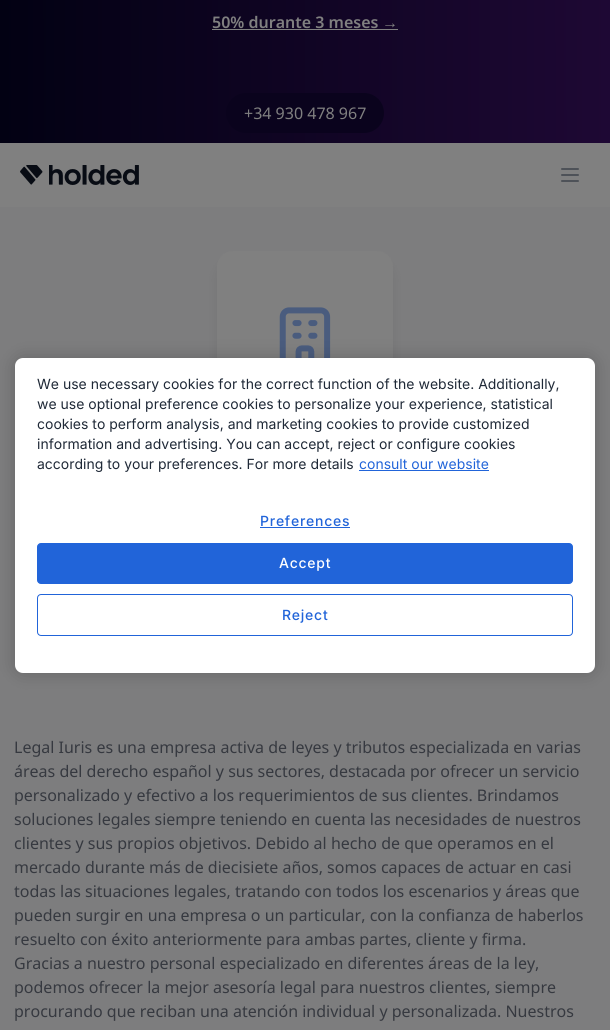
import math
import cairo



def draw_spaced(context, x, y, s, letter, word):
    context.move_to(x, y)
    for ch in s:
        context.show_text(ch)
        context.rel_move_to(letter + word * (ch == ' '), 0)


def rounded_rect(context, x, y, w, h, r):
    context.new_sub_path()
    for i, (u, v) in enumerate([(x + w - r, y + h - r), (x + r, y + h - r), (x + r, y + r), (x + w - r, y + r)]):
        context.arc(u, v, r, i * math.pi / 2, (i + 1) * math.pi / 2)
    context.close_path()


def draw_shadow(context, x, y, w, h, r, blur, alpha):
    context.push_group_with_content(cairo.Content.ALPHA)
    context.set_operator(cairo.Operator.SOURCE)
    for i in range(15, -16, -2):
        e = blur * i / 6
        if min(w, h) + 2 * e > 0:
            context.set_source_rgba(0, 0, 0, alpha * math.erfc((i - 1) / 8.5) / 2)
            rounded_rect(context, x - e, y - e, w + 2 * e, h + 2 * e, max(0, min(r + e + blur * .6, min(w, h) / 2 + e)))
            context.fill()
    context.mask(context.pop_group())


def draw_image(context, path, x, y, w, h):
    context.save()
    context.set_source_surface(cairo.ImageSurface.create_from_png(path), x, y)
    context.rectangle(x, y, w, h)
    context.fill()
    context.restore()


def draw(context):
    context.set_source_rgb(128 / 255, 128 / 255, 128 / 255)
    context.paint()
    gradient = cairo.LinearGradient(0, 72, 610, 71)
    gradient.add_color_stop_rgba(0, 2 / 255, 1 / 255, 19 / 255, 1)
    gradient.add_color_stop_rgba(1, 30 / 255, 8 / 255, 52 / 255, 1)
    context.set_source(gradient)
    context.rectangle(0, 0, 610, 143)
    context.fill()
    context.set_source_rgb(128 / 255, 128 / 255, 128 / 255)
    context.rectangle(212, 29, 186, 1)
    context.fill()
    context.set_source_rgb(10 / 255, 3 / 255, 29 / 255)
    rounded_rect(context, 226, 93, 158, 40, 20)
    context.fill()
    draw_image(context, "images/1.png", 20, 165, 119, 20)
    context.new_path()
    context.move_to(562, 169)
    context.line_to(578, 169)
    context.move_to(562, 175)
    context.line_to(578, 175)
    context.move_to(562, 181)
    context.line_to(578, 181)
    context.set_source_rgb(78 / 255, 82 / 255, 88 / 255)
    context.set_line_cap(cairo.LineCap.ROUND)
    context.set_line_join(cairo.LineJoin.ROUND)
    context.stroke()
    context.set_source_rgb(125 / 255, 125 / 255, 126 / 255)
    context.rectangle(0, 207, 610, 823)
    context.fill()
    context.set_source_rgb(0, 0, 0)
    draw_shadow(context, 220, 264, 170, 170, 13, 7.5, 0.1)
    context.set_source_rgb(128 / 255, 128 / 255, 128 / 255)
    rounded_rect(context, 217, 251, 176, 176, 16)
    context.fill()
    draw_image(context, "images/2.png", 279, 307, 52, 51)
    context.set_source_rgb(0, 0, 0)
    draw_shadow(context, 15, 358, 580, 315, 8, 9, 0.2)
    context.set_source_rgb(1, 1, 1)
    rounded_rect(context, 15, 358, 580, 315, 8)
    context.fill()
    context.set_source_rgb(33 / 255, 100 / 255, 217 / 255)
    context.rectangle(359, 470, 130, 1)
    context.fill()
    context.rectangle(260, 527, 90, 1)
    context.fill()
    rounded_rect(context, 37.5, 543.5, 535, 40, 3.5)
    context.fill_preserve()
    context.set_line_width(1)
    context.set_line_cap(cairo.LineCap.BUTT)
    context.set_line_join(cairo.LineJoin.MITER)
    context.stroke()
    rounded_rect(context, 37.5, 594.5, 535, 41, 3.5)
    context.stroke()
    context.select_font_face("Noto Sans SemiBold")
    context.set_font_size(16)
    context.set_source_rgb(128 / 255, 128 / 255, 128 / 255)
    context.move_to(212, 28)
    context.show_text("50% durante 3 meses")
    context.select_font_face("Liberation Sans", cairo.FontSlant.NORMAL, cairo.FontWeight.BOLD)
    context.move_to(382, 28)
    context.show_text("→")
    context.select_font_face("Noto Sans")
    context.move_to(244, 119)
    context.show_text("+34 930 478 967")
    context.set_source_rgb(54 / 255, 57 / 255, 64 / 255)
    context.move_to(14, 753)
    context.show_text("Legal Iuris es una empresa activa de leyes y tributos especializada en varias")
    context.move_to(14, 777)
    context.show_text("áreas del derecho español y sus sectores, destacada por ofrecer un servicio")
    context.move_to(14, 801)
    context.show_text("personalizado y efectivo a los requerimientos de sus clientes. Brindamos")
    context.move_to(14, 825)
    context.show_text("soluciones legales siempre teniendo en cuenta las necesidades de nuestros")
    context.move_to(14, 849)
    context.show_text("clientes y sus propios objetivos. Debido al hecho de que operamos en el")
    context.move_to(14, 873)
    context.show_text("mercado durante más de diecisiete años, somos capaces de actuar en casi")
    context.move_to(14, 897)
    context.show_text("todas las situaciones legales, tratando con todos los escenarios y áreas que")
    context.move_to(14, 921)
    context.show_text("pueden surgir en una empresa o un particular, con la confianza de haberlos")
    context.move_to(14, 945)
    context.show_text("resuelto con éxito anteriormente para ambas partes, cliente y firma.")
    context.move_to(14, 969)
    context.show_text("Gracias a nuestro personal especializado en diferentes áreas de la ley,")
    context.move_to(14, 993)
    context.show_text("podemos ofrecer la mejor asesoría legal para nuestros clientes, siempre")
    context.move_to(14, 1017)
    context.show_text("procurando que reciban una atención individual y personalizada. Nuestros")
    context.select_font_face("Inter")
    context.set_font_size(14)
    context.set_source_rgb(31 / 255, 41 / 255, 55 / 255)
    context.move_to(37, 389)
    context.show_text("We use necessary cookies for the correct function of the website. Additionally,")
    context.move_to(37, 409)
    context.show_text("we use optional preference cookies to personalize your experience, statistical")
    context.move_to(37, 429)
    context.show_text("cookies to perform analysis, and marketing cookies to provide customized")
    context.move_to(37, 449)
    context.show_text("information and advertising. You can accept, reject or configure cookies")
    context.move_to(37, 469)
    context.show_text("according to your preferences. For more details")
    context.set_source_rgb(33 / 255, 100 / 255, 217 / 255)
    context.move_to(359, 469)
    context.show_text("consult our website")
    context.select_font_face("Inter Medium")
    draw_spaced(context, 260, 526, "Preferences", 0.75, 0)
    context.set_source_rgb(1, 1, 1)
    draw_spaced(context, 279, 568, "Accept", 0.75, 0)
    context.set_source_rgb(33 / 255, 100 / 255, 217 / 255)
    draw_spaced(context, 282, 620, "Reject", 0.75, 0)


surface = cairo.ImageSurface(cairo.Format.RGB24, 610, 1030)
context = cairo.Context(surface)
options = cairo.FontOptions()
options.set_hint_metrics(cairo.HintMetrics.OFF)
options.set_hint_style(cairo.HintStyle.NONE)
context.set_font_options(options)
context.set_miter_limit(4)
draw(context)
surface.write_to_png("out.png")
